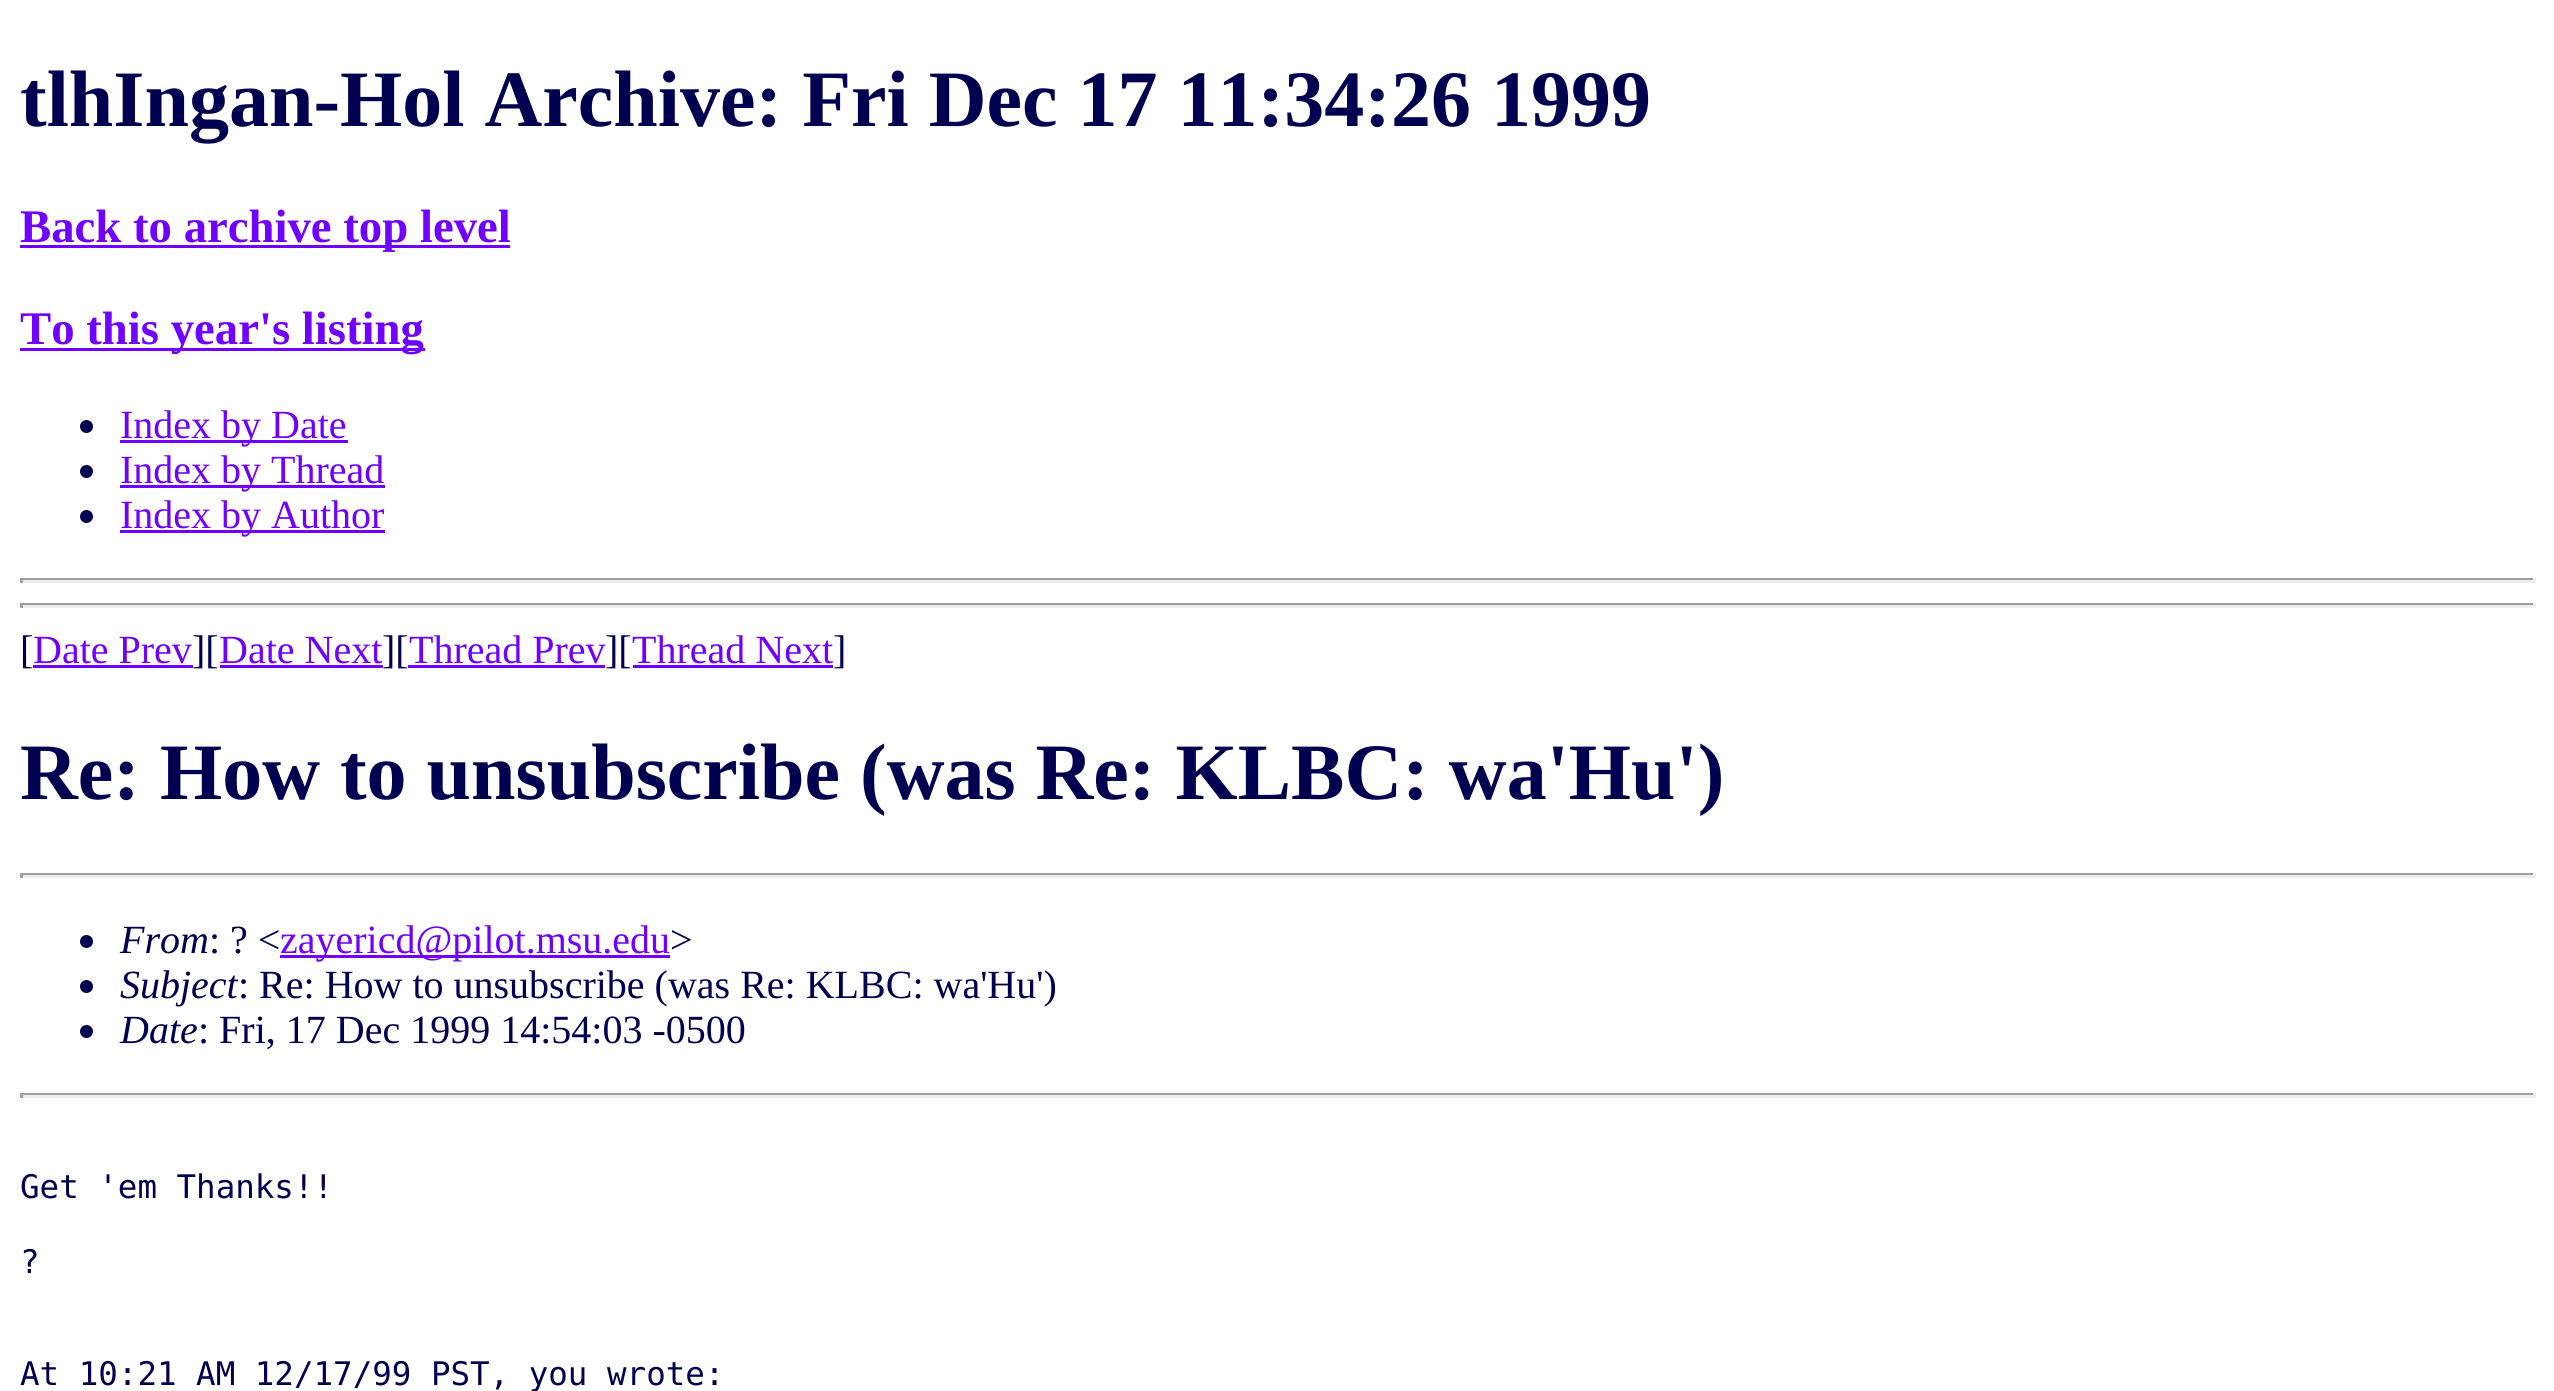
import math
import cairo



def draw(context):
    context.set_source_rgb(1, 1, 1)
    context.paint()
    context.set_source_rgb(112 / 255, 0, 1)
    context.rectangle(20, 245, 490, 3)
    context.fill()
    context.rectangle(20, 348, 405, 3)
    context.fill()
    context.set_source_rgb(0, 0, 80 / 255)
    context.arc(86.5, 426.5, 6.5, 0, 2 * math.pi)
    context.fill()
    context.set_source_rgb(112 / 255, 0, 1)
    context.rectangle(120, 440, 228, 3)
    context.fill()
    context.set_source_rgb(0, 0, 80 / 255)
    context.arc(86.5, 471.5, 6.5, 0, 2 * math.pi)
    context.fill()
    context.set_source_rgb(112 / 255, 0, 1)
    context.rectangle(120, 485, 265, 3)
    context.fill()
    context.set_source_rgb(0, 0, 80 / 255)
    context.arc(86.5, 516.5, 6.5, 0, 2 * math.pi)
    context.fill()
    context.set_source_rgb(112 / 255, 0, 1)
    context.rectangle(120, 530, 265, 3)
    context.fill()
    context.set_source_rgb(159 / 255, 159 / 255, 159 / 255)
    context.rectangle(20, 578, 2515, 2)
    context.fill()
    context.set_source_rgb(238 / 255, 238 / 255, 238 / 255)
    context.rectangle(2533, 578, 3, 5)
    context.fill()
    context.rectangle(20, 580, 2515, 3)
    context.fill()
    context.set_source_rgb(159 / 255, 159 / 255, 159 / 255)
    context.rectangle(20, 578, 3, 5)
    context.fill()
    context.rectangle(20, 603, 2515, 2)
    context.fill()
    context.set_source_rgb(238 / 255, 238 / 255, 238 / 255)
    context.rectangle(2533, 603, 3, 5)
    context.fill()
    context.rectangle(20, 605, 2515, 3)
    context.fill()
    context.set_source_rgb(159 / 255, 159 / 255, 159 / 255)
    context.rectangle(20, 603, 3, 5)
    context.fill()
    context.set_source_rgb(112 / 255, 0, 1)
    context.rectangle(33, 665, 160, 3)
    context.fill()
    context.rectangle(220, 665, 163, 3)
    context.fill()
    context.rectangle(408, 665, 197, 3)
    context.fill()
    context.rectangle(633, 665, 200, 3)
    context.fill()
    context.set_source_rgb(159 / 255, 159 / 255, 159 / 255)
    context.rectangle(20, 873, 2515, 2)
    context.fill()
    context.set_source_rgb(238 / 255, 238 / 255, 238 / 255)
    context.rectangle(2533, 873, 3, 5)
    context.fill()
    context.rectangle(20, 875, 2515, 3)
    context.fill()
    context.set_source_rgb(159 / 255, 159 / 255, 159 / 255)
    context.rectangle(20, 873, 3, 5)
    context.fill()
    context.set_source_rgb(0, 0, 80 / 255)
    context.arc(86.5, 941.5, 6.5, 0, 2 * math.pi)
    context.fill()
    context.set_source_rgb(112 / 255, 0, 1)
    context.rectangle(280, 955, 390, 3)
    context.fill()
    context.set_source_rgb(0, 0, 80 / 255)
    context.arc(86.5, 986.5, 6.5, 0, 2 * math.pi)
    context.fill()
    context.arc(86.5, 1031.5, 6.5, 0, 2 * math.pi)
    context.fill()
    context.set_source_rgb(159 / 255, 159 / 255, 159 / 255)
    context.rectangle(20, 1093, 2515, 2)
    context.fill()
    context.set_source_rgb(238 / 255, 238 / 255, 238 / 255)
    context.rectangle(2533, 1093, 3, 5)
    context.fill()
    context.rectangle(20, 1095, 2515, 3)
    context.fill()
    context.set_source_rgb(159 / 255, 159 / 255, 159 / 255)
    context.rectangle(20, 1093, 3, 5)
    context.fill()
    context.select_font_face("Liberation Serif", cairo.FontSlant.NORMAL, cairo.FontWeight.BOLD)
    context.set_font_size(80)
    context.set_source_rgb(0, 0, 80 / 255)
    context.move_to(20, 126)
    context.show_text("tlhIngan-Hol Archive: Fri Dec 17 11:34:26 1999")
    context.set_font_size(46.75)
    context.set_source_rgb(112 / 255, 0, 1)
    context.move_to(20, 242)
    context.show_text("Back to archive top level")
    context.move_to(20, 344)
    context.show_text("To this year's listing")
    context.select_font_face("Liberation Serif")
    context.set_font_size(40)
    context.move_to(120, 438)
    context.show_text("Index by Date")
    context.move_to(120, 483)
    context.show_text("Index by Thread")
    context.move_to(120, 528)
    context.show_text("Index by Author")
    context.set_source_rgb(0, 0, 80 / 255)
    context.move_to(20, 663)
    context.show_text("[")
    context.set_source_rgb(112 / 255, 0, 1)
    context.move_to(33, 663)
    context.show_text("Date Prev")
    context.set_source_rgb(0, 0, 80 / 255)
    context.move_to(192, 663)
    context.show_text("][")
    context.set_source_rgb(112 / 255, 0, 1)
    context.move_to(219, 663)
    context.show_text("Date Next")
    context.set_source_rgb(0, 0, 80 / 255)
    context.move_to(382, 663)
    context.show_text("][")
    context.set_source_rgb(112 / 255, 0, 1)
    context.move_to(409, 663)
    context.show_text("Thread Prev")
    context.set_source_rgb(0, 0, 80 / 255)
    context.move_to(605, 663)
    context.show_text("][")
    context.set_source_rgb(112 / 255, 0, 1)
    context.move_to(632, 663)
    context.show_text("Thread Next")
    context.set_source_rgb(0, 0, 80 / 255)
    context.move_to(833, 663)
    context.show_text("]")
    context.select_font_face("Liberation Serif", cairo.FontSlant.NORMAL, cairo.FontWeight.BOLD)
    context.set_font_size(80)
    context.move_to(20, 799)
    context.show_text("Re: How to unsubscribe (was Re: KLBC: wa'Hu')")
    context.select_font_face("Liberation Serif", cairo.FontSlant.ITALIC)
    context.set_font_size(40)
    context.move_to(120, 953)
    context.show_text("From")
    context.select_font_face("Liberation Serif")
    context.move_to(209, 953)
    context.show_text(": ? <")
    context.set_source_rgb(112 / 255, 0, 1)
    context.move_to(280, 953)
    context.show_text("zayericd@pilot.msu.edu")
    context.set_source_rgb(0, 0, 80 / 255)
    context.move_to(670, 953)
    context.show_text(">")
    context.select_font_face("Liberation Serif", cairo.FontSlant.ITALIC)
    context.move_to(120, 998)
    context.show_text("Subject")
    context.select_font_face("Liberation Serif")
    context.move_to(238, 998)
    context.show_text(": Re: How to unsubscribe (was Re: KLBC: wa'Hu')")
    context.select_font_face("Liberation Serif", cairo.FontSlant.ITALIC)
    context.move_to(120, 1043)
    context.show_text("Date")
    context.select_font_face("Liberation Serif")
    context.move_to(198, 1043)
    context.show_text(": Fri, 17 Dec 1999 14:54:03 -0500")
    context.select_font_face("DejaVu Sans Mono")
    context.set_font_size(32.5)
    context.move_to(20, 1198)
    context.show_text("Get 'em Thanks!!")
    context.move_to(20, 1273)
    context.show_text("?")
    context.move_to(20, 1385)
    context.show_text("At 10:21 AM 12/17/99 PST, you wrote:")


surface = cairo.ImageSurface(cairo.Format.RGB24, 2554, 1391)
context = cairo.Context(surface)
options = cairo.FontOptions()
options.set_hint_metrics(cairo.HintMetrics.OFF)
options.set_hint_style(cairo.HintStyle.NONE)
context.set_font_options(options)
context.set_miter_limit(4)
draw(context)
surface.write_to_png("out.png")
